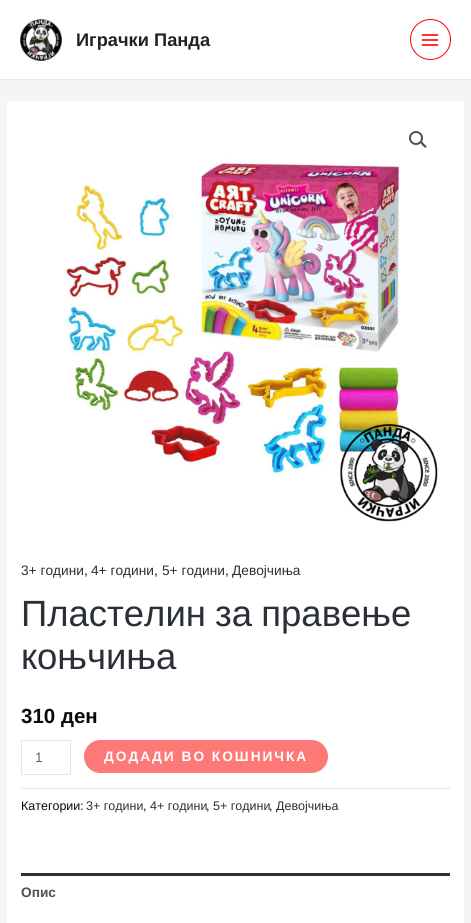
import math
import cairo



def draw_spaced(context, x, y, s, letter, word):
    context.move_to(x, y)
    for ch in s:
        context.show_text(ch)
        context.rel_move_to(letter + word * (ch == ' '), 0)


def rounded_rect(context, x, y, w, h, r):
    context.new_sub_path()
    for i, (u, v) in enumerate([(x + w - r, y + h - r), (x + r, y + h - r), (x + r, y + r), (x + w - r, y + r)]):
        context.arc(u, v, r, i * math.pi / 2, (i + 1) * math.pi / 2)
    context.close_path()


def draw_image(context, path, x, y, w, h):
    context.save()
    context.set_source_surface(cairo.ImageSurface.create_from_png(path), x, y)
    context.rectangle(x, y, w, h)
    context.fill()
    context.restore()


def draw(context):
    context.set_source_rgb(245 / 255, 245 / 255, 245 / 255)
    context.paint()
    context.set_source_rgb(1, 1, 1)
    context.rectangle(0, 0, 471, 79)
    context.fill()
    context.set_source_rgb(234 / 255, 234 / 255, 234 / 255)
    context.rectangle(0, 79, 471, 1)
    context.fill()
    draw_image(context, "images/1.png", 20, 19, 42, 42)
    context.arc(430.5, 39.5, 20, 0, 2 * math.pi)
    context.set_source_rgb(1, 0, 0)
    context.set_line_width(1)
    context.stroke()
    draw_image(context, "images/2.png", 421, 34, 18, 12)
    context.set_source_rgb(1, 1, 1)
    context.rectangle(7, 101, 457, 822)
    context.fill()
    context.arc(416, 138, 6, 0, 2 * math.pi)
    context.set_source_rgb(75 / 255, 79 / 255, 88 / 255)
    context.set_line_width(2)
    context.stroke()
    context.new_path()
    context.move_to(420.5, 141.5)
    context.curve_to(421.5, 140.5, 423.5, 143, 424, 144)
    context.curve_to(424.5, 144.5, 427.5, 146, 426, 147.5)
    context.curve_to(425, 148.5, 423, 146, 422.5, 145.5)
    context.curve_to(422, 144.5, 419.5, 143, 420.5, 141.5)
    context.close_path()
    context.fill()
    draw_image(context, "images/3.png", 64, 158, 374, 364)
    context.rectangle(21.5, 740.5, 49, 34)
    context.set_source_rgb(229 / 255, 229 / 255, 229 / 255)
    context.set_line_width(1)
    context.stroke()
    context.set_source_rgb(252 / 255, 121 / 255, 120 / 255)
    rounded_rect(context, 84, 740, 244, 33, 16.5)
    context.fill()
    context.set_source_rgb(229 / 255, 229 / 255, 229 / 255)
    context.rectangle(21, 788, 429, 1)
    context.fill()
    context.set_source_rgb(43 / 255, 47 / 255, 56 / 255)
    context.rectangle(21, 873, 429, 3)
    context.fill()
    context.select_font_face("Liberation Sans", cairo.FontSlant.NORMAL, cairo.FontWeight.BOLD)
    context.set_font_size(18.25)
    context.set_source_rgb(34 / 255, 34 / 255, 34 / 255)
    context.move_to(76, 46)
    context.show_text("Играчки Панда")
    context.select_font_face("Liberation Sans")
    context.set_font_size(13.7)
    context.set_source_rgb(43 / 255, 47 / 255, 56 / 255)
    context.move_to(21, 575)
    context.show_text("3+ години")
    context.set_source_rgb(10 / 255, 10 / 255, 10 / 255)
    context.move_to(84, 575)
    context.show_text(",")
    context.set_source_rgb(43 / 255, 47 / 255, 56 / 255)
    context.move_to(91, 575)
    context.show_text("4+ години")
    context.set_source_rgb(10 / 255, 10 / 255, 10 / 255)
    context.move_to(154, 575)
    context.show_text(",")
    context.set_source_rgb(43 / 255, 47 / 255, 56 / 255)
    context.move_to(162, 575)
    context.show_text("5+ години")
    context.set_source_rgb(10 / 255, 10 / 255, 10 / 255)
    context.move_to(225, 575)
    context.show_text(",")
    context.set_source_rgb(43 / 255, 47 / 255, 56 / 255)
    context.move_to(232, 575)
    context.show_text("Девојчиња")
    context.set_font_size(36.5)
    draw_spaced(context, 21, 626, "Пластелин за правење", 0, -1)
    context.move_to(21, 669)
    context.show_text("коњчиња")
    context.select_font_face("Liberation Sans", cairo.FontSlant.NORMAL, cairo.FontWeight.BOLD)
    context.set_font_size(20.5)
    context.set_source_rgb(10 / 255, 10 / 255, 10 / 255)
    context.move_to(21, 723)
    context.show_text("310 ден")
    context.select_font_face("Liberation Sans")
    context.set_font_size(13.7)
    context.set_source_rgb(102 / 255, 102 / 255, 102 / 255)
    context.move_to(35, 762)
    context.show_text("1")
    context.select_font_face("Liberation Sans", cairo.FontSlant.NORMAL, cairo.FontWeight.BOLD)
    context.set_source_rgb(1, 1, 1)
    draw_spaced(context, 104, 761, "ДОДАДИ ВО КОШНИЧКА", 2, 0)
    context.select_font_face("Liberation Sans")
    context.set_font_size(12.5)
    context.set_source_rgb(10 / 255, 10 / 255, 10 / 255)
    context.move_to(21, 810)
    context.show_text("Категории:")
    context.set_source_rgb(43 / 255, 47 / 255, 56 / 255)
    context.move_to(86, 810)
    context.show_text("3+ години")
    context.set_source_rgb(10 / 255, 10 / 255, 10 / 255)
    context.move_to(143, 810)
    context.show_text(",")
    context.set_source_rgb(43 / 255, 47 / 255, 56 / 255)
    context.move_to(150, 810)
    context.show_text("4+ години")
    context.set_source_rgb(10 / 255, 10 / 255, 10 / 255)
    context.move_to(206, 810)
    context.show_text(",")
    context.set_source_rgb(43 / 255, 47 / 255, 56 / 255)
    context.move_to(213, 810)
    context.show_text("5+ години")
    context.set_source_rgb(10 / 255, 10 / 255, 10 / 255)
    context.move_to(269, 810)
    context.show_text(",")
    context.set_source_rgb(43 / 255, 47 / 255, 56 / 255)
    context.move_to(276, 810)
    context.show_text("Девојчиња")
    context.select_font_face("Liberation Sans", cairo.FontSlant.NORMAL, cairo.FontWeight.BOLD)
    context.set_font_size(13.7)
    context.set_source_rgb(81 / 255, 81 / 255, 81 / 255)
    context.move_to(21, 897)
    context.show_text("Опис")


surface = cairo.ImageSurface(cairo.Format.RGB24, 471, 923)
context = cairo.Context(surface)
options = cairo.FontOptions()
options.set_hint_metrics(cairo.HintMetrics.OFF)
options.set_hint_style(cairo.HintStyle.NONE)
context.set_font_options(options)
context.set_miter_limit(4)
draw(context)
surface.write_to_png("out.png")
